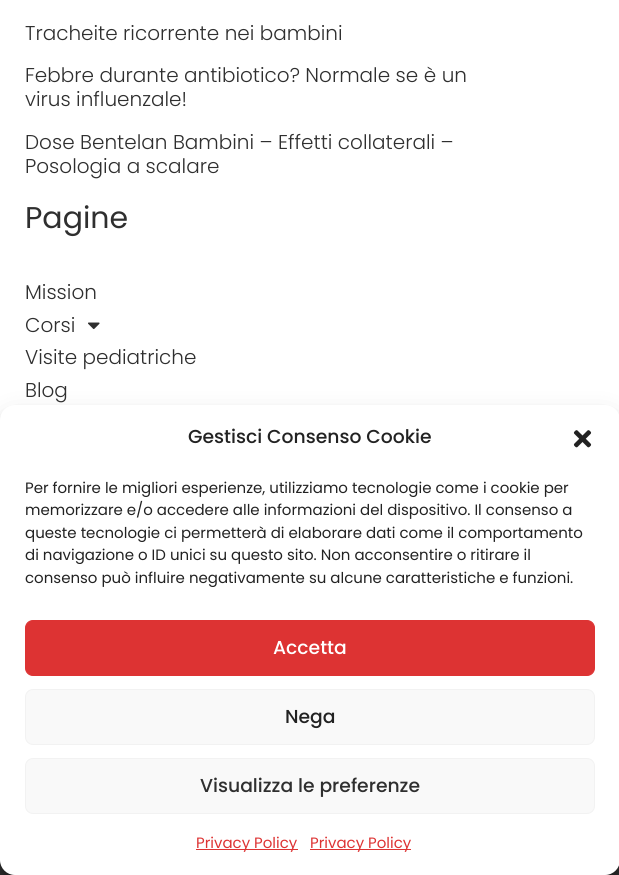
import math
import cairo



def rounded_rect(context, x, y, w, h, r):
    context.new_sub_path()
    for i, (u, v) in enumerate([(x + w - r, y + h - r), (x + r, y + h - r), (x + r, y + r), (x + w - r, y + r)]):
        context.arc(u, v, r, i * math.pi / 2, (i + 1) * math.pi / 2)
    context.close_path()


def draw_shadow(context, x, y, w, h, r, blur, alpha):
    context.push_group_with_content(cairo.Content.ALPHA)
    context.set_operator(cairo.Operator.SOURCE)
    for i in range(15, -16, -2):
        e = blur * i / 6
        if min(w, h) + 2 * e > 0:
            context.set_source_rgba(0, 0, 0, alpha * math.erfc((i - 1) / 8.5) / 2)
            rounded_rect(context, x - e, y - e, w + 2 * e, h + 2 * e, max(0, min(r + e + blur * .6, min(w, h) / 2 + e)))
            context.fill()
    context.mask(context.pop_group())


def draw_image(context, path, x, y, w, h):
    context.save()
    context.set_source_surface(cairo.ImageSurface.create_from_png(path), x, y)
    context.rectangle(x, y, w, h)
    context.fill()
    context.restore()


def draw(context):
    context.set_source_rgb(1, 1, 1)
    context.paint()
    draw_image(context, "images/1.png", 88, 322, 12, 8)
    context.set_source_rgb(47 / 255, 47 / 255, 47 / 255)
    context.rectangle(0, 860, 619, 15)
    context.fill()
    context.set_source_rgb(0, 0, 0)
    draw_shadow(context, 0, 413, 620, 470, 15, 4, 0.23)
    draw_shadow(context, 0, 418, 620, 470, 15, 12.5, 0.19)
    context.set_source_rgb(1, 1, 1)
    rounded_rect(context, 0, 405, 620, 470, 15)
    context.fill()
    draw_image(context, "images/2.png", 573, 430, 19, 18)
    context.set_source_rgb(221 / 255, 51 / 255, 51 / 255)
    rounded_rect(context, 25.5, 620.5, 569, 55, 7.5)
    context.fill_preserve()
    context.set_line_width(1)
    context.stroke()
    context.set_source_rgb(249 / 255, 249 / 255, 249 / 255)
    rounded_rect(context, 25.5, 689.5, 569, 55, 7.5)
    context.fill_preserve()
    context.set_source_rgb(242 / 255, 242 / 255, 242 / 255)
    context.stroke()
    context.set_source_rgb(249 / 255, 249 / 255, 249 / 255)
    rounded_rect(context, 25.5, 758.5, 569, 55, 7.5)
    context.fill_preserve()
    context.set_source_rgb(242 / 255, 242 / 255, 242 / 255)
    context.stroke()
    context.set_source_rgb(221 / 255, 51 / 255, 51 / 255)
    context.rectangle(196, 849, 102, 1)
    context.fill()
    context.rectangle(310, 849, 101, 1)
    context.fill()
    context.select_font_face("Poppins Light")
    context.set_font_size(20)
    context.set_source_rgb(47 / 255, 47 / 255, 47 / 255)
    context.move_to(25, 40)
    context.show_text("Tracheite ricorrente nei bambini")
    context.move_to(25, 82)
    context.show_text("Febbre durante antibiotico? Normale se è un")
    context.move_to(25, 106)
    context.show_text("virus influenzale!")
    context.move_to(25, 149)
    context.show_text("Dose Bentelan Bambini – Effetti collaterali –")
    context.move_to(25, 173)
    context.show_text("Posologia a scalare")
    context.select_font_face("Poppins")
    context.set_font_size(30)
    context.move_to(25, 228)
    context.show_text("Pagine")
    context.select_font_face("Poppins Light")
    context.set_font_size(20)
    context.move_to(25, 299)
    context.show_text("Mission")
    context.move_to(25, 332)
    context.show_text("Corsi")
    context.move_to(25, 364)
    context.show_text("Visite pediatriche")
    context.move_to(25, 397)
    context.show_text("Blog")
    context.select_font_face("Poppins Medium")
    context.set_font_size(18.75)
    context.set_source_rgb(34 / 255, 34 / 255, 34 / 255)
    context.move_to(188, 443)
    context.show_text("Gestisci Consenso Cookie")
    context.select_font_face("Poppins")
    context.set_font_size(15)
    context.move_to(25, 493)
    context.show_text("Per fornire le migliori esperienze, utilizziamo tecnologie come i cookie per")
    context.move_to(25, 515)
    context.show_text("memorizzare e/o accedere alle informazioni del dispositivo. Il consenso a")
    context.move_to(25, 538)
    context.show_text("queste tecnologie ci permetterà di elaborare dati come il comportamento")
    context.move_to(25, 560)
    context.show_text("di navigazione o ID unici su questo sito. Non acconsentire o ritirare il")
    context.move_to(25, 583)
    context.show_text("consenso può influire negativamente su alcune caratteristiche e funzioni.")
    context.select_font_face("Poppins Medium")
    context.set_font_size(18.75)
    context.set_source_rgb(1, 1, 1)
    context.move_to(273, 654)
    context.show_text("Accetta")
    context.set_source_rgb(34 / 255, 34 / 255, 34 / 255)
    context.move_to(285, 723)
    context.show_text("Nega")
    context.set_source_rgb(47 / 255, 47 / 255, 47 / 255)
    context.move_to(200, 792)
    context.show_text("Visualizza le preferenze")
    context.select_font_face("Poppins")
    context.set_font_size(15)
    context.set_source_rgb(221 / 255, 51 / 255, 51 / 255)
    context.move_to(196, 848)
    context.show_text("Privacy Policy")
    context.move_to(310, 848)
    context.show_text("Privacy Policy")


surface = cairo.ImageSurface(cairo.Format.RGB24, 619, 875)
context = cairo.Context(surface)
options = cairo.FontOptions()
options.set_hint_metrics(cairo.HintMetrics.OFF)
options.set_hint_style(cairo.HintStyle.NONE)
context.set_font_options(options)
context.set_miter_limit(4)
draw(context)
surface.write_to_png("out.png")
